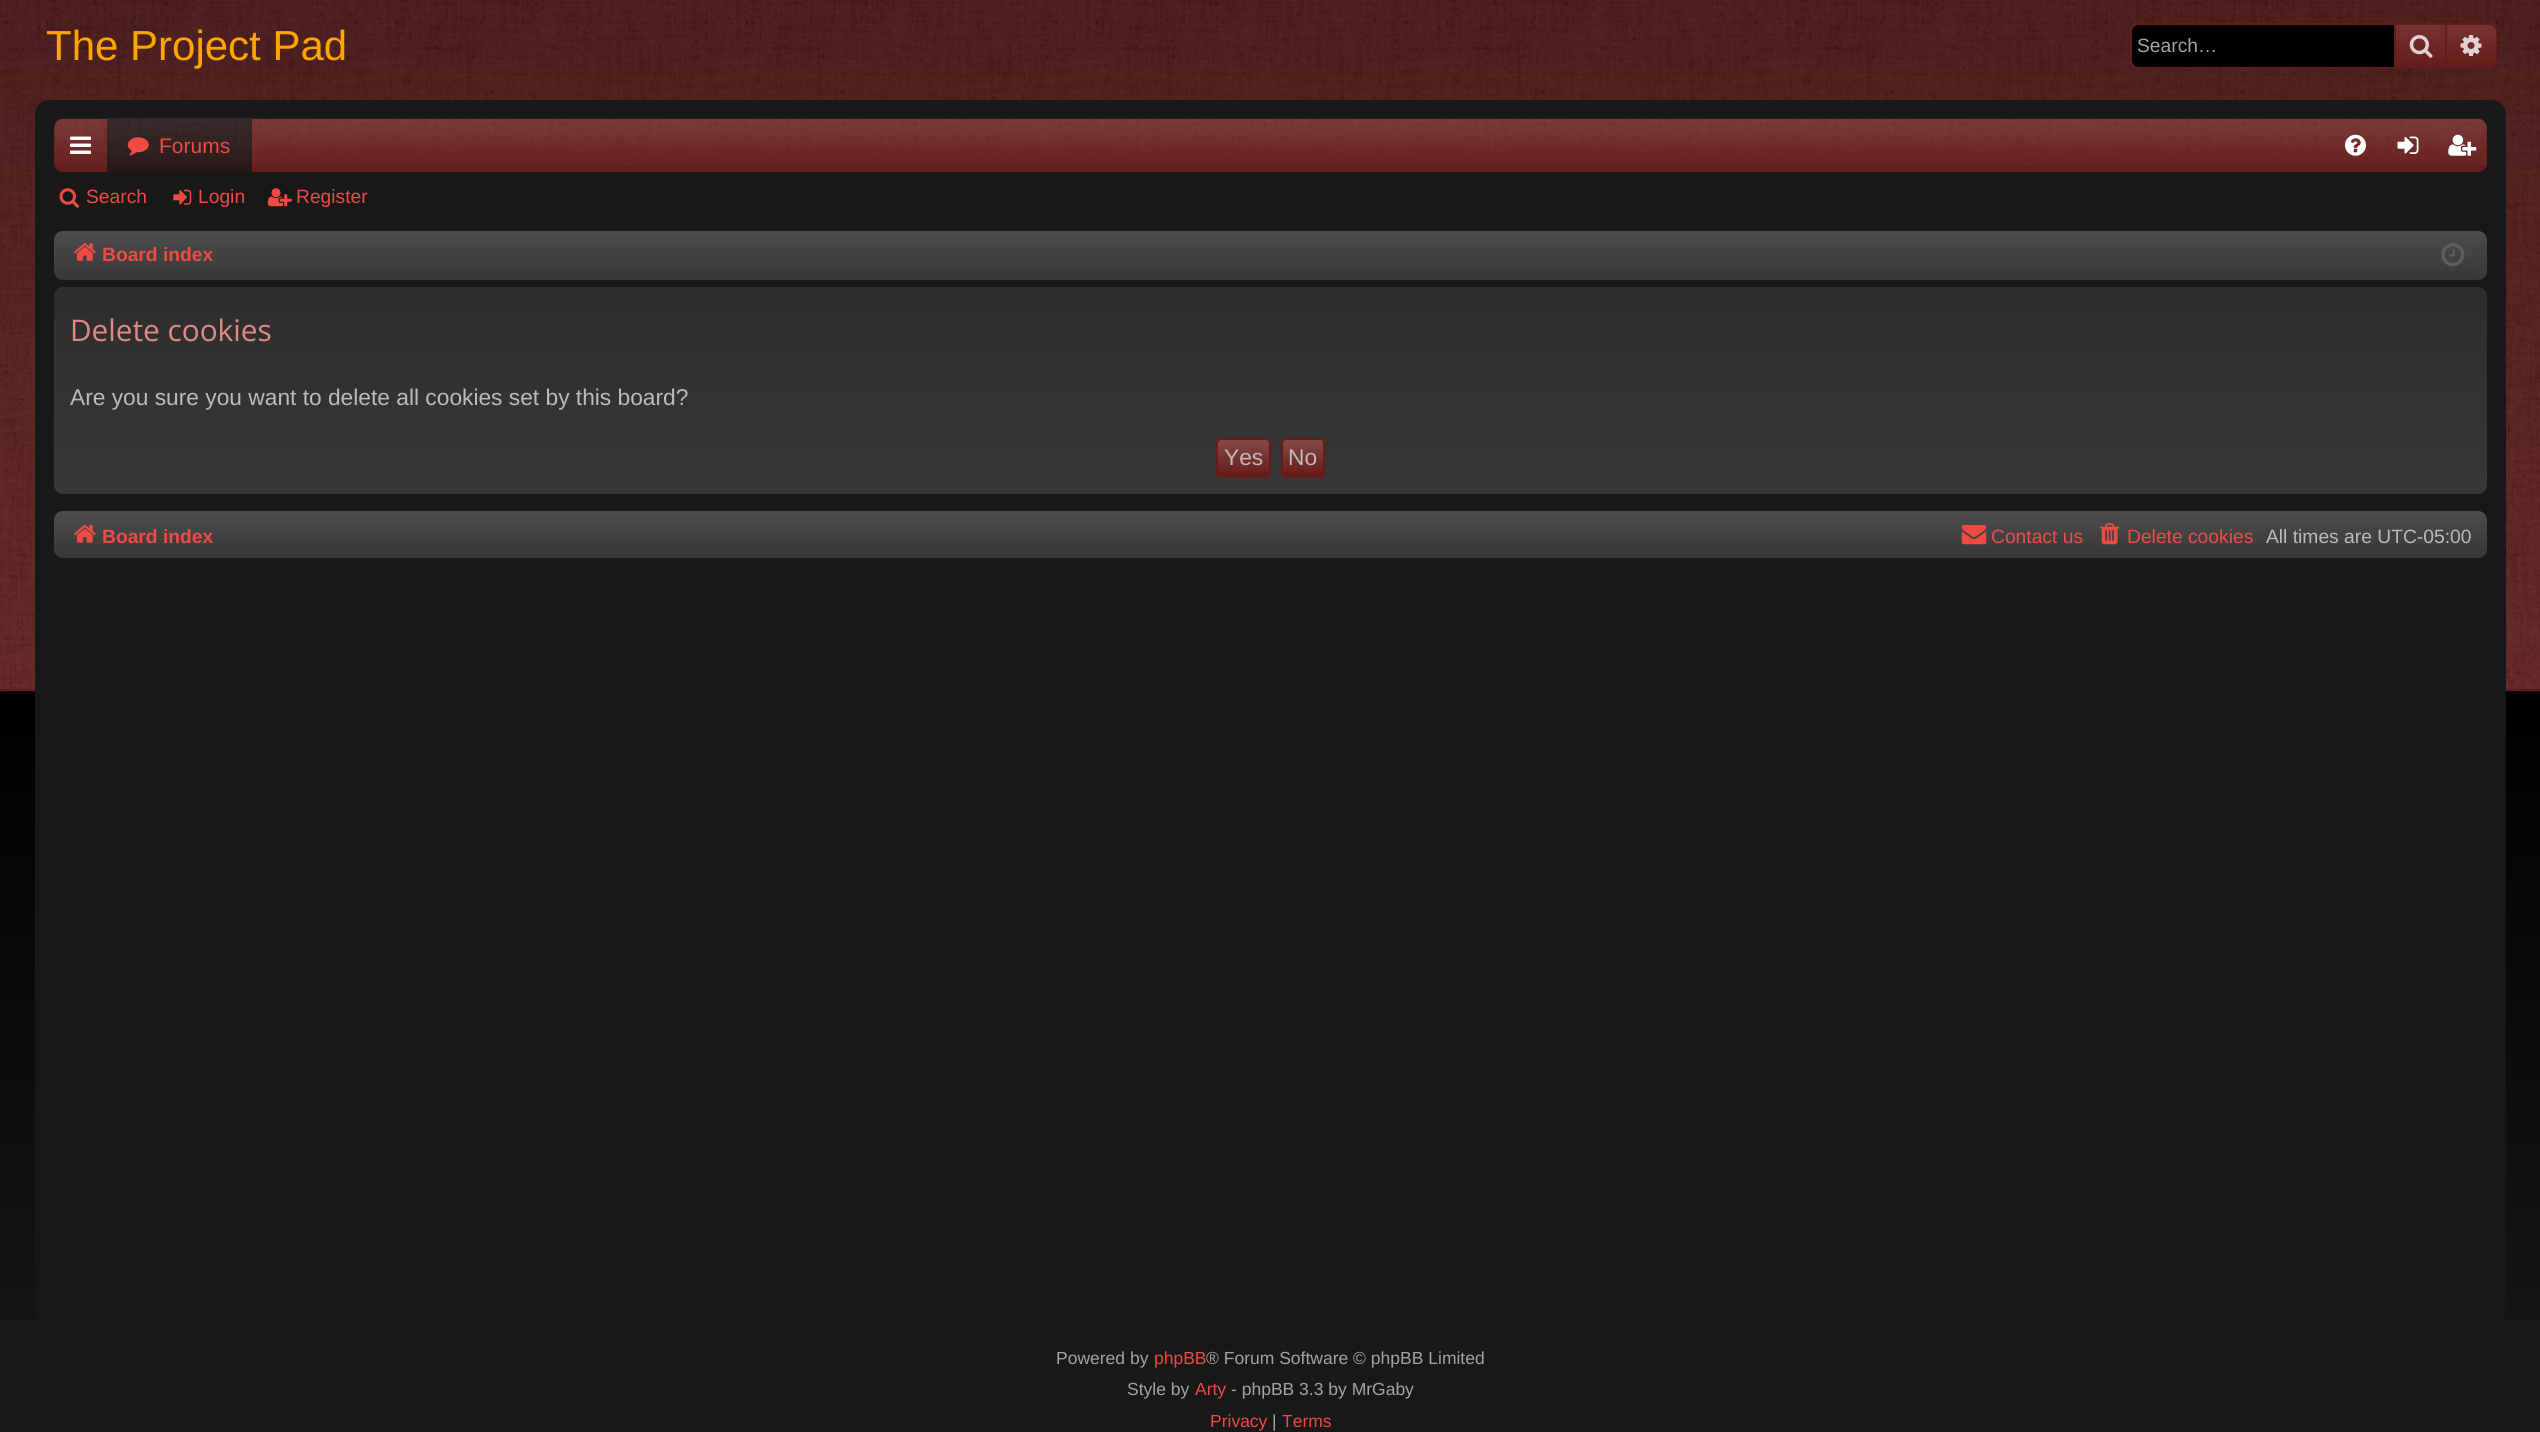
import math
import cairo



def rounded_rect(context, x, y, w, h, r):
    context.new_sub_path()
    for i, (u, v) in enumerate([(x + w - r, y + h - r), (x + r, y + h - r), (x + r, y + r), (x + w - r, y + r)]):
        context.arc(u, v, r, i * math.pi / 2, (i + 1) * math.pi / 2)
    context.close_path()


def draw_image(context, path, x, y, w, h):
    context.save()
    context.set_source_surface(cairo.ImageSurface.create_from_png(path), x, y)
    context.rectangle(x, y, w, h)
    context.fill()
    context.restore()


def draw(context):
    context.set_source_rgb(24 / 255, 24 / 255, 24 / 255)
    context.paint()
    gradient = cairo.LinearGradient(1271, -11, 1271, 1423)
    gradient.add_color_stop_rgba(0, 0, 0, 0, 1)
    gradient.add_color_stop_rgba(0.49, 0, 0, 0, 1)
    gradient.add_color_stop_rgba(0.98, 24 / 255, 24 / 255, 24 / 255, 1)
    context.set_source(gradient)
    context.rectangle(0, 691, 2540, 630)
    context.fill()
    context.set_source_rgb(92 / 255, 28 / 255, 26 / 255)
    context.rectangle(0, 0, 2540, 691)
    context.fill()
    draw_image(context, "images/1.png", 0, 0, 2540, 691)
    context.set_source_rgba(188 / 255, 23 / 255, 16 / 255, 0.2)
    context.rectangle(0, 690, 2540, 2)
    context.fill()
    rounded_rect(context, 2131, 24, 365, 43, 6)
    context.set_source_rgb(102 / 255, 29 / 255, 26 / 255)
    context.stroke()
    context.set_source_rgb(0, 0, 0)
    context.new_path()
    context.move_to(2139, 25)
    context.line_to(2394, 25)
    context.line_to(2394, 67)
    context.line_to(2139, 67)
    context.curve_to(2135, 67, 2132, 64, 2132, 60)
    context.line_to(2132, 32)
    context.curve_to(2132, 28, 2135, 25, 2139, 25)
    context.close_path()
    context.fill()
    gradient = cairo.LinearGradient(2420, 24, 2420, 67)
    gradient.add_color_stop_rgba(0, 117 / 255, 52 / 255, 49 / 255, 1)
    gradient.add_color_stop_rgba(1, 102 / 255, 29 / 255, 26 / 255, 1)
    context.set_source(gradient)
    context.rectangle(2396, 25, 49, 41)
    context.fill()
    context.set_source_rgb(102 / 255, 29 / 255, 26 / 255)
    context.rectangle(2445, 25, 2, 42)
    context.fill()
    context.rectangle(2394, 25, 2, 42)
    context.fill()
    draw_image(context, "images/2.png", 2409, 35, 24, 23)
    context.new_path()
    context.move_to(2447, 25)
    context.line_to(2489, 25)
    context.curve_to(2493, 25, 2496, 28, 2496, 32)
    context.line_to(2496, 60)
    context.curve_to(2496, 64, 2493, 67, 2489, 67)
    context.line_to(2447, 67)
    context.close_path()
    context.fill()
    gradient = cairo.LinearGradient(2471, 24, 2471, 67)
    gradient.add_color_stop_rgba(0, 1, 1, 1, 0.1)
    gradient.add_color_stop_rgba(1, 1, 1, 1, 0)
    context.set_source(gradient)
    context.new_path()
    context.move_to(2447, 25)
    context.line_to(2489, 25)
    context.curve_to(2493, 25, 2496, 28, 2496, 32)
    context.line_to(2496, 60)
    context.curve_to(2496, 64, 2493, 67, 2489, 67)
    context.line_to(2447, 67)
    context.close_path()
    context.fill()
    draw_image(context, "images/3.png", 2460, 35, 22, 21)
    context.set_source_rgb(24 / 255, 24 / 255, 24 / 255)
    rounded_rect(context, 36, 101, 2469, 1223, 13)
    context.fill_preserve()
    context.stroke()
    context.set_source_rgb(102 / 255, 29 / 255, 26 / 255)
    rounded_rect(context, 54, 119, 2433, 53, 9)
    context.fill()
    draw_image(context, "images/4.png", 54, 118, 2433, 48)
    draw_image(context, "images/5.png", 70, 136, 21, 18)
    context.set_source_rgb(40 / 255, 25 / 255, 24 / 255)
    context.rectangle(107, 119, 145, 53)
    context.fill()
    draw_image(context, "images/6.png", 107, 118, 145, 47)
    draw_image(context, "images/7.png", 127, 137, 22, 19)
    draw_image(context, "images/8.png", 2345, 134, 21, 22)
    draw_image(context, "images/9.png", 2397, 136, 22, 18)
    draw_image(context, "images/10.png", 2448, 134, 29, 22)
    draw_image(context, "images/11.png", 59, 188, 20, 20)
    draw_image(context, "images/12.png", 173, 189, 19, 16)
    draw_image(context, "images/13.png", 267, 188, 25, 19)
    context.set_source_rgb(56 / 255, 56 / 255, 56 / 255)
    rounded_rect(context, 54, 231, 2433, 49, 9)
    context.fill()
    gradient = cairo.LinearGradient(1271, 231, 1271, 280)
    gradient.add_color_stop_rgba(0, 1, 1, 1, 0.1)
    gradient.add_color_stop_rgba(1, 1, 1, 1, 0)
    context.set_source(gradient)
    rounded_rect(context, 54, 231, 2433, 49, 9)
    context.fill()
    draw_image(context, "images/14.png", 73, 243, 23, 18)
    draw_image(context, "images/15.png", 2441, 243, 24, 24)
    context.set_source_rgb(56 / 255, 56 / 255, 56 / 255)
    rounded_rect(context, 54, 287, 2433, 207, 9)
    context.fill()
    gradient = cairo.LinearGradient(1271, 287, 1271, 494)
    gradient.add_color_stop_rgba(0, 0, 0, 0, 0.2)
    gradient.add_color_stop_rgba(1, 0, 0, 0, 0)
    context.set_source(gradient)
    rounded_rect(context, 54, 287, 2433, 207, 9)
    context.fill()
    context.set_source_rgb(102 / 255, 29 / 255, 26 / 255)
    rounded_rect(context, 1216, 438, 55, 40, 5)
    context.fill()
    context.save()
    rounded_rect(context, 1216, 438, 55, 40, 5)
    context.clip()
    gradient = cairo.LinearGradient(1243, 439, 1243, 476)
    gradient.add_color_stop_rgba(0, 1, 1, 1, 0.2)
    gradient.add_color_stop_rgba(1, 1, 1, 1, 0)
    context.set_source(gradient)
    context.rectangle(1216, 439, 55, 33)
    context.fill()
    context.restore()
    rounded_rect(context, 1217, 439, 53, 38, 4)
    context.stroke()
    rounded_rect(context, 1281, 438, 44, 40, 5)
    context.fill()
    context.save()
    rounded_rect(context, 1281, 438, 44, 40, 5)
    context.clip()
    gradient = cairo.LinearGradient(1303, 439, 1303, 476)
    gradient.add_color_stop_rgba(0, 1, 1, 1, 0.2)
    gradient.add_color_stop_rgba(1, 1, 1, 1, 0)
    context.set_source(gradient)
    context.rectangle(1281, 439, 44, 33)
    context.fill()
    context.restore()
    rounded_rect(context, 1282, 439, 42, 38, 4)
    context.stroke()
    context.set_source_rgb(56 / 255, 56 / 255, 56 / 255)
    rounded_rect(context, 54, 511, 2433, 47, 9)
    context.fill()
    gradient = cairo.LinearGradient(1271, 511, 1271, 558)
    gradient.add_color_stop_rgba(0, 1, 1, 1, 0.1)
    gradient.add_color_stop_rgba(1, 1, 1, 1, 0)
    context.set_source(gradient)
    rounded_rect(context, 54, 511, 2433, 47, 9)
    context.fill()
    draw_image(context, "images/16.png", 73, 525, 23, 18)
    draw_image(context, "images/17.png", 1961, 525, 26, 20)
    draw_image(context, "images/18.png", 2100, 523, 20, 22)
    context.select_font_face("Liberation Sans")
    context.set_font_size(42)
    context.set_source_rgb(1, 165 / 255, 0)
    context.move_to(46, 60)
    context.show_text("The Project Pad")
    context.set_font_size(19.25)
    context.set_source_rgb(163 / 255, 163 / 255, 163 / 255)
    context.move_to(2137, 52)
    context.show_text("Search…")
    context.set_font_size(21)
    context.set_source_rgb(239 / 255, 74 / 255, 67 / 255)
    context.move_to(159, 153)
    context.show_text("Forums")
    context.set_font_size(19.25)
    context.move_to(86, 203)
    context.show_text("Search")
    context.move_to(198, 203)
    context.show_text("Login")
    context.move_to(296, 203)
    context.show_text("Register")
    context.select_font_face("Liberation Sans", cairo.FontSlant.NORMAL, cairo.FontWeight.BOLD)
    context.move_to(102, 261)
    context.show_text("Board index")
    context.select_font_face("Open Sans")
    context.set_font_size(29.75)
    context.set_source_rgb(224 / 255, 137 / 255, 133 / 255)
    context.move_to(70, 341)
    context.show_text("Delete cookies")
    context.select_font_face("Liberation Sans")
    context.set_font_size(22.75)
    context.set_source_rgb(187 / 255, 187 / 255, 187 / 255)
    context.move_to(70, 405)
    context.show_text("Are you sure you want to delete all cookies set by this board?")
    context.move_to(1224, 465)
    context.show_text("Yes")
    context.move_to(1288, 465)
    context.show_text("No")
    context.select_font_face("Liberation Sans", cairo.FontSlant.NORMAL, cairo.FontWeight.BOLD)
    context.set_font_size(19.25)
    context.set_source_rgb(239 / 255, 74 / 255, 67 / 255)
    context.move_to(102, 543)
    context.show_text("Board index")
    context.select_font_face("Liberation Sans")
    context.move_to(1991, 543)
    context.show_text("Contact us")
    context.move_to(2127, 543)
    context.show_text("Delete cookies")
    context.set_source_rgb(187 / 255, 187 / 255, 187 / 255)
    context.move_to(2266, 543)
    context.show_text("All times are UTC-05:00")
    context.set_font_size(17.5)
    context.set_source_rgb(163 / 255, 163 / 255, 163 / 255)
    context.move_to(1056, 1364)
    context.show_text("Powered by")
    context.set_source_rgb(239 / 255, 74 / 255, 67 / 255)
    context.move_to(1154, 1364)
    context.show_text("phpBB")
    context.set_source_rgb(163 / 255, 163 / 255, 163 / 255)
    context.move_to(1206, 1364)
    context.show_text("® Forum Software © phpBB Limited")
    context.move_to(1127, 1395)
    context.show_text("Style by")
    context.set_source_rgb(239 / 255, 74 / 255, 67 / 255)
    context.move_to(1195, 1395)
    context.show_text("Arty")
    context.set_source_rgb(163 / 255, 163 / 255, 163 / 255)
    context.move_to(1231, 1395)
    context.show_text("- phpBB 3.3 by MrGaby")
    context.set_source_rgb(239 / 255, 74 / 255, 67 / 255)
    context.move_to(1210, 1427)
    context.show_text("Privacy")
    context.set_source_rgb(163 / 255, 163 / 255, 163 / 255)
    context.move_to(1272, 1427)
    context.show_text("|")
    context.set_source_rgb(239 / 255, 74 / 255, 67 / 255)
    context.move_to(1282, 1427)
    context.show_text("Terms")


surface = cairo.ImageSurface(cairo.Format.RGB24, 2540, 1432)
context = cairo.Context(surface)
options = cairo.FontOptions()
options.set_hint_metrics(cairo.HintMetrics.OFF)
options.set_hint_style(cairo.HintStyle.NONE)
context.set_font_options(options)
context.set_miter_limit(4)
draw(context)
surface.write_to_png("out.png")
